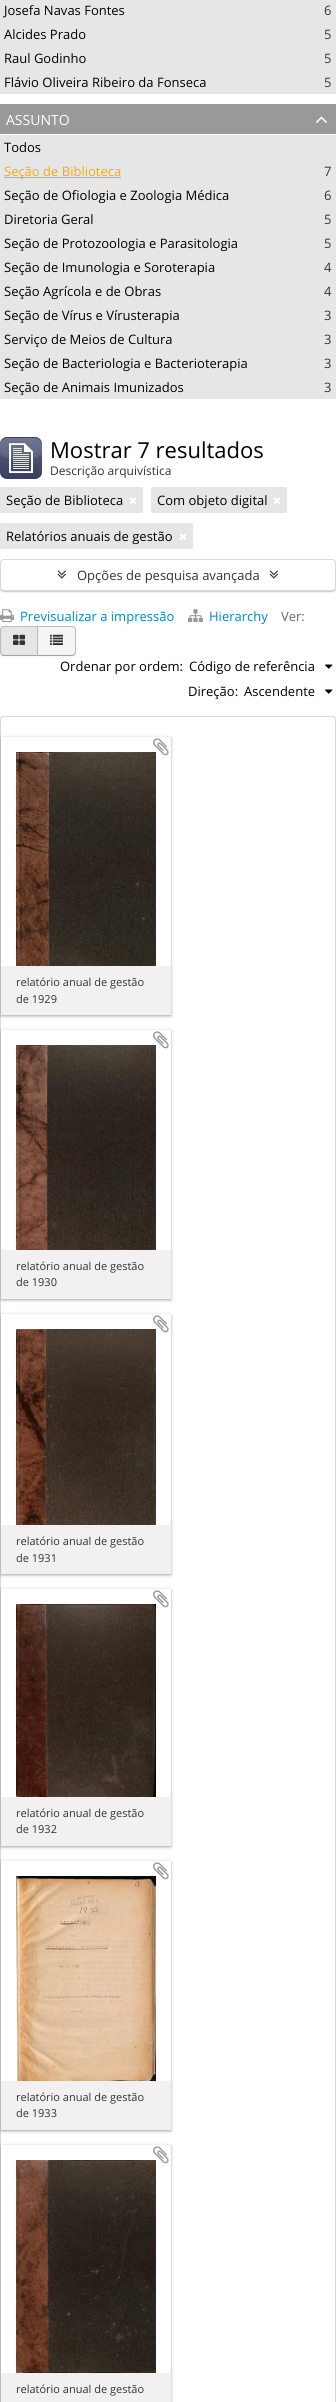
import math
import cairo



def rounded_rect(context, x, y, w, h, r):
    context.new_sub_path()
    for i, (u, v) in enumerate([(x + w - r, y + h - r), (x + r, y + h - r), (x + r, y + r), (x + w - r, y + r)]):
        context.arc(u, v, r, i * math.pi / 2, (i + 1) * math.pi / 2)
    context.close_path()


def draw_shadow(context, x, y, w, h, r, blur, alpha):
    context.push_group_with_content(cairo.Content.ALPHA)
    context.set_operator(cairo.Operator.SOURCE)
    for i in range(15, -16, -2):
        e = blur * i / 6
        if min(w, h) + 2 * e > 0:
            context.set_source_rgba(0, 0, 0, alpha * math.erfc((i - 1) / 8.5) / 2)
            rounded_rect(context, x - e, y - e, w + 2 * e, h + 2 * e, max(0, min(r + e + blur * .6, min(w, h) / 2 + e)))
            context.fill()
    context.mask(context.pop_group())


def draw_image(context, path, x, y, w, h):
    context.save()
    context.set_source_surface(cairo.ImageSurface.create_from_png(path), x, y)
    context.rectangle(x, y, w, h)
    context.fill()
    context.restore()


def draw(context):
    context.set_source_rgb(1, 1, 1)
    context.paint()
    context.set_source_rgb(230 / 255, 230 / 255, 230 / 255)
    context.rectangle(0, 0, 336, 94)
    context.fill()
    context.set_source_rgb(153 / 255, 153 / 255, 153 / 255)
    context.rectangle(0, 104, 336, 30)
    context.fill()
    draw_image(context, "images/1.png", 316, 116, 11, 7)
    context.set_source_rgb(230 / 255, 230 / 255, 230 / 255)
    context.rectangle(0, 135, 336, 264)
    context.fill()
    context.set_source_rgb(246 / 255, 172 / 255, 0)
    context.rectangle(4, 177, 117, 1)
    context.fill()
    draw_image(context, "images/2.png", 0, 437, 42, 42)
    context.set_source_rgb(230 / 255, 230 / 255, 230 / 255)
    rounded_rect(context, 0, 487, 143, 26, 2)
    context.fill()
    draw_image(context, "images/3.png", 129, 497, 7, 7)
    rounded_rect(context, 151, 487, 136, 26, 2)
    context.fill()
    draw_image(context, "images/3.png", 273, 497, 7, 7)
    rounded_rect(context, 0, 523, 193, 26, 2)
    context.fill()
    draw_image(context, "images/3.png", 179, 533, 7, 7)
    context.set_source_rgb(0, 0, 0)
    draw_shadow(context, 0, 560, 336, 32, 4, 0.5, 0.2)
    context.set_source_rgb(1, 1, 1)
    rounded_rect(context, 0.5, 559.5, 335, 31, 3.5)
    context.fill_preserve()
    context.set_source_rgb(217 / 255, 217 / 255, 217 / 255)
    context.set_line_width(1)
    context.stroke()
    draw_image(context, "images/4.png", 57, 570, 9, 9)
    draw_image(context, "images/4.png", 269, 570, 9, 9)
    draw_image(context, "images/5.png", 0, 609, 14, 14)
    draw_image(context, "images/6.png", 188, 609, 15, 14)
    context.set_source_rgb(0, 0, 0)
    draw_shadow(context, 37, 627, 39, 30, 4, 1, 0.05)
    context.set_source_rgb(245 / 255, 245 / 255, 245 / 255)
    context.new_path()
    context.move_to(37, 626)
    context.line_to(72, 626)
    context.curve_to(74, 626, 76, 628, 76, 630)
    context.line_to(76, 652)
    context.curve_to(76, 654, 74, 656, 72, 656)
    context.line_to(37, 656)
    context.close_path()
    context.fill()
    context.set_source_rgb(187 / 255, 187 / 255, 187 / 255)
    context.new_path()
    context.move_to(37, 626)
    context.line_to(38, 627)
    context.line_to(72, 627)
    context.curve_to(73, 627, 73.5, 627.5, 74, 628)
    context.line_to(75, 627)
    context.curve_to(74, 626.5, 73, 626, 72, 626)
    context.close_path()
    context.fill()
    context.new_path()
    context.move_to(76, 652)
    context.line_to(76, 630)
    context.curve_to(76, 629, 75.5, 628, 75, 627)
    context.line_to(74, 628)
    context.curve_to(74.5, 628.5, 75, 629, 75, 630)
    context.line_to(75, 652)
    context.curve_to(75, 653, 74.5, 653.5, 74, 654)
    context.line_to(75, 655)
    context.curve_to(75.5, 654, 76, 653, 76, 652)
    context.close_path()
    context.fill()
    context.set_source_rgb(162 / 255, 162 / 255, 162 / 255)
    context.new_path()
    context.move_to(72, 656)
    context.curve_to(73, 656, 74, 655.5, 75, 655)
    context.line_to(74, 654)
    context.curve_to(73.5, 654.5, 73, 655, 72, 655)
    context.line_to(38, 655)
    context.line_to(37, 656)
    context.close_path()
    context.fill()
    context.set_source_rgb(0, 0, 0)
    draw_shadow(context, 0, 627, 38, 30, 4, 1, 0.05)
    context.set_source_rgb(230 / 255, 230 / 255, 230 / 255)
    context.new_path()
    context.move_to(4, 626)
    context.line_to(38, 626)
    context.line_to(38, 656)
    context.line_to(4, 656)
    context.curve_to(2, 656, 0, 654, 0, 652)
    context.line_to(0, 630)
    context.curve_to(0, 628, 2, 626, 4, 626)
    context.close_path()
    context.fill()
    context.set_source_rgb(187 / 255, 187 / 255, 187 / 255)
    context.new_path()
    context.move_to(4, 626)
    context.curve_to(3, 626, 2, 626.5, 1, 627)
    context.line_to(2, 628)
    context.curve_to(2.5, 627.5, 3, 627, 4, 627)
    context.line_to(37, 627)
    context.line_to(38, 626)
    context.close_path()
    context.fill()
    context.new_path()
    context.move_to(38, 626)
    context.line_to(37, 627)
    context.line_to(37, 655)
    context.line_to(38, 656)
    context.close_path()
    context.fill()
    context.set_source_rgb(162 / 255, 162 / 255, 162 / 255)
    context.new_path()
    context.move_to(38, 656)
    context.line_to(37, 655)
    context.line_to(4, 655)
    context.curve_to(3, 655, 2.5, 654.5, 2, 654)
    context.line_to(1, 655)
    context.curve_to(2, 655.5, 3, 656, 4, 656)
    context.close_path()
    context.fill()
    context.set_source_rgb(187 / 255, 187 / 255, 187 / 255)
    context.new_path()
    context.move_to(0, 630)
    context.line_to(0, 652)
    context.curve_to(0, 653, 0.5, 654, 1, 655)
    context.line_to(2, 654)
    context.curve_to(1.5, 653.5, 1, 653, 1, 652)
    context.line_to(1, 630)
    context.curve_to(1, 629, 1.5, 628.5, 2, 628)
    context.line_to(1, 627)
    context.curve_to(0.5, 628, 0, 629, 0, 630)
    context.close_path()
    context.fill()
    draw_image(context, "images/7.png", 13, 634, 13, 11)
    draw_image(context, "images/8.png", 50, 634, 13, 11)
    draw_image(context, "images/9.png", 325, 664, 8, 5)
    draw_image(context, "images/9.png", 325, 689, 8, 5)
    rounded_rect(context, 0.5, 716.5, 335, 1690, 3.5)
    context.set_source_rgb(217 / 255, 217 / 255, 217 / 255)
    context.stroke()
    context.save()
    context.set_fill_rule(cairo.FillRule.EVEN_ODD)
    context.new_path()
    context.move_to(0, 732)
    context.line_to(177, 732)
    context.line_to(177, 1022)
    context.line_to(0, 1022)
    context.close_path()
    context.move_to(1, 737)
    context.line_to(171, 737)
    context.line_to(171, 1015)
    context.line_to(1, 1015)
    context.close_path()
    context.clip()
    context.set_source_rgb(25 / 255, 25 / 255, 25 / 255)
    draw_shadow(context, 1, 738, 170, 278, 0, 1.5, 0.4)
    context.restore()
    draw_image(context, "images/10.png", 16, 752, 140, 214)
    context.set_source_rgb(242 / 255, 240 / 255, 240 / 255)
    context.rectangle(1, 966, 170, 49)
    context.fill()
    draw_image(context, "images/11.png", 153, 738, 16, 18)
    context.save()
    context.set_fill_rule(cairo.FillRule.EVEN_ODD)
    context.new_path()
    context.move_to(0, 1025)
    context.line_to(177, 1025)
    context.line_to(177, 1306)
    context.line_to(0, 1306)
    context.close_path()
    context.move_to(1, 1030)
    context.line_to(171, 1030)
    context.line_to(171, 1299)
    context.line_to(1, 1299)
    context.close_path()
    context.clip()
    context.set_source_rgb(25 / 255, 25 / 255, 25 / 255)
    draw_shadow(context, 1, 1031, 170, 269, 0, 1.5, 0.4)
    context.restore()
    draw_image(context, "images/12.png", 16, 1045, 140, 205)
    context.rectangle(1, 1250, 170, 49)
    context.fill()
    draw_image(context, "images/13.png", 153, 1031, 16, 18)
    context.save()
    context.set_fill_rule(cairo.FillRule.EVEN_ODD)
    context.new_path()
    context.move_to(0, 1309)
    context.line_to(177, 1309)
    context.line_to(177, 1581)
    context.line_to(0, 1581)
    context.close_path()
    context.move_to(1, 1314)
    context.line_to(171, 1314)
    context.line_to(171, 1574)
    context.line_to(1, 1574)
    context.close_path()
    context.clip()
    context.set_source_rgb(25 / 255, 25 / 255, 25 / 255)
    draw_shadow(context, 1, 1315, 170, 260, 0, 1.5, 0.4)
    context.restore()
    draw_image(context, "images/14.png", 16, 1329, 140, 196)
    context.rectangle(1, 1525, 170, 49)
    context.fill()
    draw_image(context, "images/15.png", 153, 1315, 16, 18)
    context.save()
    context.set_fill_rule(cairo.FillRule.EVEN_ODD)
    context.new_path()
    context.move_to(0, 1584)
    context.line_to(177, 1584)
    context.line_to(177, 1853)
    context.line_to(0, 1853)
    context.close_path()
    context.move_to(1, 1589)
    context.line_to(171, 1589)
    context.line_to(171, 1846)
    context.line_to(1, 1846)
    context.close_path()
    context.clip()
    context.set_source_rgb(25 / 255, 25 / 255, 25 / 255)
    draw_shadow(context, 1, 1590, 170, 257, 0, 1.5, 0.4)
    context.restore()
    draw_image(context, "images/16.png", 16, 1604, 140, 193)
    context.rectangle(1, 1797, 170, 49)
    context.fill()
    draw_image(context, "images/17.png", 153, 1590, 16, 18)
    context.save()
    context.set_fill_rule(cairo.FillRule.EVEN_ODD)
    context.new_path()
    context.move_to(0, 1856)
    context.line_to(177, 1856)
    context.line_to(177, 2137)
    context.line_to(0, 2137)
    context.close_path()
    context.move_to(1, 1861)
    context.line_to(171, 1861)
    context.line_to(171, 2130)
    context.line_to(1, 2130)
    context.close_path()
    context.clip()
    context.set_source_rgb(25 / 255, 25 / 255, 25 / 255)
    draw_shadow(context, 1, 1862, 170, 269, 0, 1.5, 0.4)
    context.restore()
    draw_image(context, "images/18.png", 16, 1876, 140, 205)
    context.rectangle(1, 2081, 170, 49)
    context.fill()
    draw_image(context, "images/19.png", 153, 1862, 16, 18)
    context.save()
    context.set_fill_rule(cairo.FillRule.EVEN_ODD)
    context.new_path()
    context.move_to(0, 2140)
    context.line_to(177, 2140)
    context.line_to(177, 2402)
    context.line_to(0, 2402)
    context.close_path()
    context.move_to(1, 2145)
    context.line_to(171, 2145)
    context.line_to(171, 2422)
    context.line_to(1, 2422)
    context.close_path()
    context.clip()
    context.set_source_rgb(25 / 255, 25 / 255, 25 / 255)
    draw_shadow(context, 1, 2146, 170, 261, 0, 1.5, 0.4)
    context.restore()
    draw_image(context, "images/20.png", 16, 2160, 140, 213)
    context.rectangle(1, 2373, 170, 29)
    context.fill()
    draw_image(context, "images/21.png", 153, 2146, 16, 18)
    context.select_font_face("Open Sans")
    context.set_font_size(13)
    context.set_source_rgb(0, 0, 0)
    context.move_to(4, 15)
    context.show_text("Josefa Navas Fontes")
    context.set_source_rgb(51 / 255, 51 / 255, 51 / 255)
    context.move_to(324, 15)
    context.show_text("6")
    context.set_source_rgb(0, 0, 0)
    context.move_to(4, 39)
    context.show_text("Alcides Prado")
    context.set_source_rgb(51 / 255, 51 / 255, 51 / 255)
    context.move_to(324, 39)
    context.show_text("5")
    context.set_source_rgb(0, 0, 0)
    context.move_to(4, 63)
    context.show_text("Raul Godinho")
    context.set_source_rgb(51 / 255, 51 / 255, 51 / 255)
    context.move_to(324, 63)
    context.show_text("5")
    context.set_source_rgb(0, 0, 0)
    context.move_to(4, 87)
    context.show_text("Flávio Oliveira Ribeiro da Fonseca")
    context.set_source_rgb(51 / 255, 51 / 255, 51 / 255)
    context.move_to(324, 87)
    context.show_text("5")
    context.set_font_size(14)
    context.set_source_rgb(1, 1, 1)
    context.move_to(6, 125)
    context.show_text("ASSUNTO")
    context.set_font_size(13)
    context.set_source_rgb(0, 0, 0)
    context.move_to(4, 152)
    context.show_text("Todos")
    context.set_source_rgb(246 / 255, 172 / 255, 0)
    context.move_to(4, 176)
    context.show_text("Seção de Biblioteca")
    context.set_source_rgb(51 / 255, 51 / 255, 51 / 255)
    context.move_to(324, 176)
    context.show_text("7")
    context.set_source_rgb(0, 0, 0)
    context.move_to(4, 200)
    context.show_text("Seção de Ofiologia e Zoologia Médica")
    context.set_source_rgb(51 / 255, 51 / 255, 51 / 255)
    context.move_to(324, 200)
    context.show_text("6")
    context.set_source_rgb(0, 0, 0)
    context.move_to(4, 224)
    context.show_text("Diretoria Geral")
    context.set_source_rgb(51 / 255, 51 / 255, 51 / 255)
    context.move_to(324, 224)
    context.show_text("5")
    context.set_source_rgb(0, 0, 0)
    context.move_to(4, 248)
    context.show_text("Seção de Protozoologia e Parasitologia")
    context.set_source_rgb(51 / 255, 51 / 255, 51 / 255)
    context.move_to(324, 248)
    context.show_text("5")
    context.set_source_rgb(0, 0, 0)
    context.move_to(4, 272)
    context.show_text("Seção de Imunologia e Soroterapia")
    context.set_source_rgb(51 / 255, 51 / 255, 51 / 255)
    context.move_to(324, 272)
    context.show_text("4")
    context.set_source_rgb(0, 0, 0)
    context.move_to(4, 296)
    context.show_text("Seção Agrícola e de Obras")
    context.set_source_rgb(51 / 255, 51 / 255, 51 / 255)
    context.move_to(324, 296)
    context.show_text("4")
    context.set_source_rgb(0, 0, 0)
    context.move_to(4, 320)
    context.show_text("Seção de Vírus e Vírusterapia")
    context.set_source_rgb(51 / 255, 51 / 255, 51 / 255)
    context.move_to(324, 320)
    context.show_text("3")
    context.set_source_rgb(0, 0, 0)
    context.move_to(4, 344)
    context.show_text("Serviço de Meios de Cultura")
    context.set_source_rgb(51 / 255, 51 / 255, 51 / 255)
    context.move_to(324, 344)
    context.show_text("3")
    context.set_source_rgb(0, 0, 0)
    context.move_to(4, 368)
    context.show_text("Seção de Bacteriologia e Bacterioterapia")
    context.set_source_rgb(51 / 255, 51 / 255, 51 / 255)
    context.move_to(324, 368)
    context.show_text("3")
    context.set_source_rgb(0, 0, 0)
    context.move_to(4, 392)
    context.show_text("Seção de Animais Imunizados")
    context.set_source_rgb(51 / 255, 51 / 255, 51 / 255)
    context.move_to(324, 392)
    context.show_text("3")
    context.set_font_size(22)
    context.set_source_rgb(0, 0, 0)
    context.move_to(50, 458)
    context.show_text("Mostrar 7 resultados")
    context.set_font_size(12)
    context.set_source_rgb(51 / 255, 51 / 255, 51 / 255)
    context.move_to(50, 475)
    context.show_text("Descrição arquivística")
    context.set_font_size(13)
    context.set_source_rgb(0, 0, 0)
    context.move_to(6, 505)
    context.show_text("Seção de Biblioteca")
    context.move_to(157, 505)
    context.show_text("Com objeto digital")
    context.move_to(6, 541)
    context.show_text("Relatórios anuais de gestão")
    context.set_source_rgb(51 / 255, 51 / 255, 51 / 255)
    context.move_to(77, 580)
    context.show_text("Opções de pesquisa avançada")
    context.set_source_rgb(0, 136 / 255, 204 / 255)
    context.move_to(20, 621)
    context.show_text("Previsualizar a impressão")
    context.move_to(209, 621)
    context.show_text("Hierarchy")
    context.set_source_rgb(102 / 255, 102 / 255, 102 / 255)
    context.move_to(281, 621)
    context.show_text("Ver:")
    context.set_source_rgb(0, 0, 0)
    context.move_to(60, 671)
    context.show_text("Ordenar por ordem:")
    context.move_to(189, 671)
    context.show_text("Código de referência")
    context.move_to(188, 696)
    context.show_text("Direção:")
    context.move_to(244, 696)
    context.show_text("Ascendente")
    context.set_font_size(11)
    context.set_source_rgb(51 / 255, 51 / 255, 51 / 255)
    context.move_to(16, 986)
    context.show_text("relatório anual de gestão")
    context.move_to(16, 1003)
    context.show_text("de 1929")
    context.move_to(16, 1270)
    context.show_text("relatório anual de gestão")
    context.move_to(16, 1286)
    context.show_text("de 1930")
    context.move_to(16, 1545)
    context.show_text("relatório anual de gestão")
    context.move_to(16, 1562)
    context.show_text("de 1931")
    context.move_to(16, 1817)
    context.show_text("relatório anual de gestão")
    context.move_to(16, 1833)
    context.show_text("de 1932")
    context.move_to(16, 2101)
    context.show_text("relatório anual de gestão")
    context.move_to(16, 2117)
    context.show_text("de 1933")
    context.move_to(16, 2393)
    context.show_text("relatório anual de gestão")


surface = cairo.ImageSurface(cairo.Format.RGB24, 336, 2402)
context = cairo.Context(surface)
options = cairo.FontOptions()
options.set_hint_metrics(cairo.HintMetrics.OFF)
options.set_hint_style(cairo.HintStyle.NONE)
context.set_font_options(options)
context.set_miter_limit(4)
draw(context)
surface.write_to_png("out.png")
